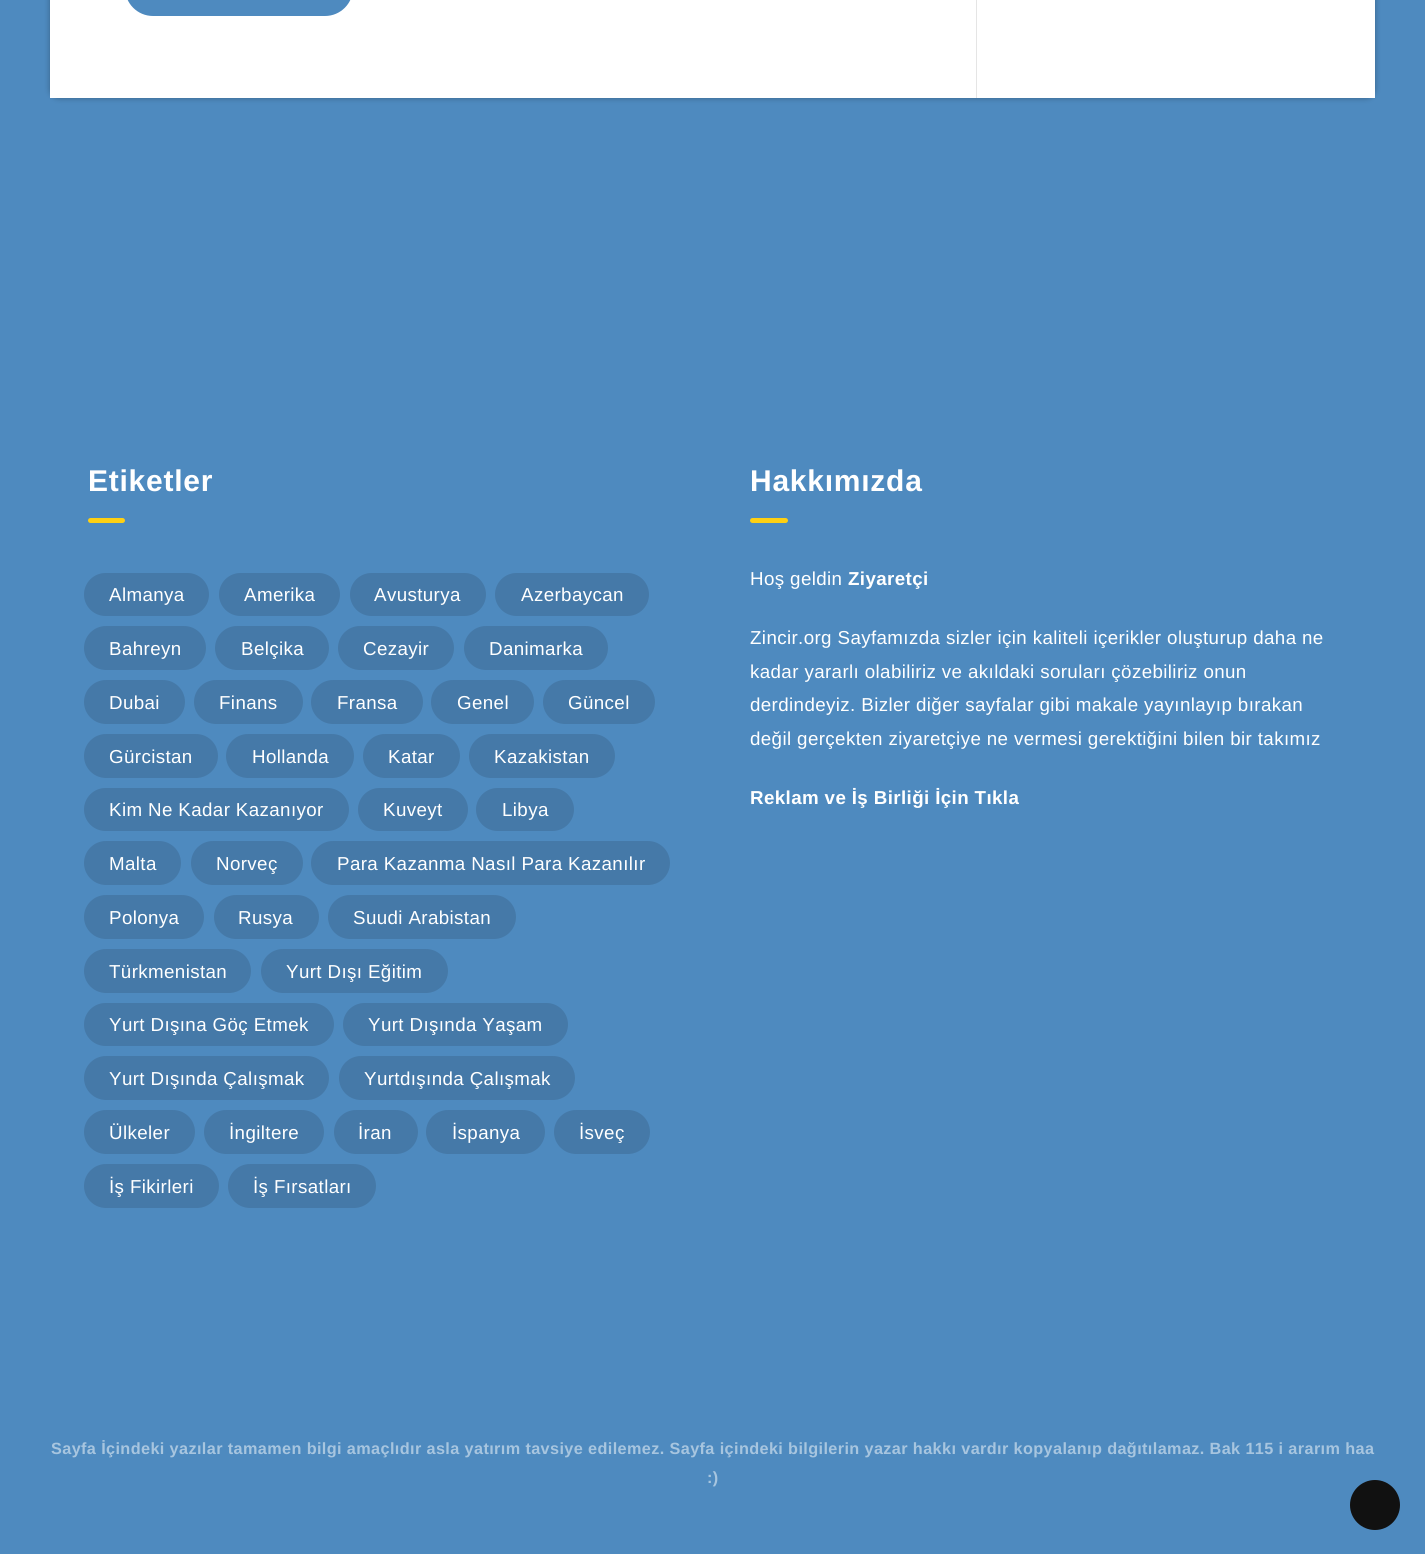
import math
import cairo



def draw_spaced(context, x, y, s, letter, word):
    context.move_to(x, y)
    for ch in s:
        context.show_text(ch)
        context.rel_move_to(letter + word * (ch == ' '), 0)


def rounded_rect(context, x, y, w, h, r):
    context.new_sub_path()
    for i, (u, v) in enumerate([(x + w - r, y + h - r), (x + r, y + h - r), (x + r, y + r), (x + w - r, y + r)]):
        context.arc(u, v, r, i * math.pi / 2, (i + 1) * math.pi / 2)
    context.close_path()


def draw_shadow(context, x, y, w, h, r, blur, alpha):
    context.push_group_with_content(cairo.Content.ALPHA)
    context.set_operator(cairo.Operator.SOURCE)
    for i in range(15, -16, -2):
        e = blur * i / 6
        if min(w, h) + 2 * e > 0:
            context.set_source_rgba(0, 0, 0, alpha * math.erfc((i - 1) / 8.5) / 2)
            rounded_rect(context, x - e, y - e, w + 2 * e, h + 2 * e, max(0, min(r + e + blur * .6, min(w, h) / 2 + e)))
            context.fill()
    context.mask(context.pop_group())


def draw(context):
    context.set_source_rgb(78 / 255, 138 / 255, 191 / 255)
    context.paint()
    context.set_source_rgb(0, 0, 0)
    draw_shadow(context, 50, -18, 1325, 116, 9, 3, 0.3)
    context.set_source_rgb(1, 1, 1)
    context.rectangle(50, 0, 1325, 98)
    context.fill()
    context.set_source_rgb(229 / 255, 229 / 255, 229 / 255)
    context.rectangle(976, 0, 1, 98)
    context.fill()
    context.set_source_rgb(78 / 255, 138 / 255, 191 / 255)
    rounded_rect(context, 126.5, -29.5, 225, 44, 26.5)
    context.fill_preserve()
    context.set_line_width(3)
    context.stroke()
    context.set_source_rgb(1, 208 / 255, 18 / 255)
    rounded_rect(context, 88, 518, 37, 5, 2.5)
    context.fill()
    context.set_source_rgb(69 / 255, 121 / 255, 168 / 255)
    rounded_rect(context, 84, 573, 125, 43, 21.5)
    context.fill()
    rounded_rect(context, 219, 573, 121, 43, 21.5)
    context.fill()
    rounded_rect(context, 350, 573, 136, 43, 21.5)
    context.fill()
    rounded_rect(context, 495, 573, 154, 43, 21.5)
    context.fill()
    rounded_rect(context, 84, 626, 122, 44, 22)
    context.fill()
    rounded_rect(context, 215, 626, 114, 44, 22)
    context.fill()
    rounded_rect(context, 338, 626, 116, 44, 22)
    context.fill()
    rounded_rect(context, 464, 626, 144, 44, 22)
    context.fill()
    rounded_rect(context, 84, 680, 101, 44, 22)
    context.fill()
    rounded_rect(context, 194, 680, 109, 44, 22)
    context.fill()
    rounded_rect(context, 311, 680, 112, 44, 22)
    context.fill()
    rounded_rect(context, 431, 680, 103, 44, 22)
    context.fill()
    rounded_rect(context, 543, 680, 112, 44, 22)
    context.fill()
    rounded_rect(context, 84, 734, 134, 44, 22)
    context.fill()
    rounded_rect(context, 226, 734, 128, 44, 22)
    context.fill()
    rounded_rect(context, 363, 734, 97, 44, 22)
    context.fill()
    rounded_rect(context, 469, 734, 146, 44, 22)
    context.fill()
    rounded_rect(context, 84, 788, 265, 43, 21.5)
    context.fill()
    rounded_rect(context, 358, 788, 110, 43, 21.5)
    context.fill()
    rounded_rect(context, 476, 788, 98, 43, 21.5)
    context.fill()
    rounded_rect(context, 84, 841, 97, 44, 22)
    context.fill()
    rounded_rect(context, 191, 841, 112, 44, 22)
    context.fill()
    rounded_rect(context, 311, 841, 359, 44, 22)
    context.fill()
    rounded_rect(context, 84, 895, 120, 44, 22)
    context.fill()
    rounded_rect(context, 214, 895, 105, 44, 22)
    context.fill()
    rounded_rect(context, 328, 895, 188, 44, 22)
    context.fill()
    rounded_rect(context, 84, 949, 167, 44, 22)
    context.fill()
    rounded_rect(context, 261, 949, 187, 44, 22)
    context.fill()
    rounded_rect(context, 84, 1003, 250, 43, 21.5)
    context.fill()
    rounded_rect(context, 343, 1003, 225, 43, 21.5)
    context.fill()
    rounded_rect(context, 84, 1056, 245, 44, 22)
    context.fill()
    rounded_rect(context, 339, 1056, 236, 44, 22)
    context.fill()
    rounded_rect(context, 84, 1110, 111, 44, 22)
    context.fill()
    rounded_rect(context, 204, 1110, 120, 44, 22)
    context.fill()
    rounded_rect(context, 334, 1110, 84, 44, 22)
    context.fill()
    rounded_rect(context, 426, 1110, 119, 44, 22)
    context.fill()
    rounded_rect(context, 554, 1110, 96, 44, 22)
    context.fill()
    rounded_rect(context, 84, 1164, 135, 44, 22)
    context.fill()
    rounded_rect(context, 228, 1164, 148, 44, 22)
    context.fill()
    context.set_source_rgb(1, 208 / 255, 18 / 255)
    rounded_rect(context, 750, 518, 38, 5, 2.5)
    context.fill()
    context.set_source_rgb(17 / 255, 17 / 255, 17 / 255)
    context.arc(1375, 1505, 25, 0, 2 * math.pi)
    context.fill()
    context.select_font_face("Liberation Sans", cairo.FontSlant.NORMAL, cairo.FontWeight.BOLD)
    context.set_font_size(30)
    context.set_source_rgb(1, 1, 1)
    draw_spaced(context, 88, 491, "Etiketler", 0.75, 0)
    context.select_font_face("Liberation Sans")
    context.set_font_size(18.75)
    draw_spaced(context, 109, 601, "Almanya", 0.38, 0)
    draw_spaced(context, 244, 601, "Amerika", 0.38, 0)
    draw_spaced(context, 374, 601, "Avusturya", 0.38, 0)
    draw_spaced(context, 521, 601, "Azerbaycan", 0.38, 0)
    draw_spaced(context, 109, 655, "Bahreyn", 0.38, 0)
    draw_spaced(context, 241, 655, "Belçika", 0.38, 0)
    draw_spaced(context, 363, 655, "Cezayir", 0.38, 0)
    draw_spaced(context, 489, 655, "Danimarka", 0.38, 0)
    draw_spaced(context, 109, 709, "Dubai", 0.38, 0)
    draw_spaced(context, 219, 709, "Finans", 0.38, 0)
    draw_spaced(context, 337, 709, "Fransa", 0.38, 0)
    draw_spaced(context, 457, 709, "Genel", 0.38, 0)
    draw_spaced(context, 568, 709, "Güncel", 0.38, 0)
    draw_spaced(context, 109, 763, "Gürcistan", 0.38, 0)
    draw_spaced(context, 252, 763, "Hollanda", 0.38, 0)
    draw_spaced(context, 388, 763, "Katar", 0.38, 0)
    draw_spaced(context, 494, 763, "Kazakistan", 0.38, 0)
    draw_spaced(context, 109, 816, "Kim Ne Kadar Kazanıyor", 0.38, 0)
    draw_spaced(context, 383, 816, "Kuveyt", 0.38, 0)
    draw_spaced(context, 502, 816, "Libya", 0.38, 0)
    draw_spaced(context, 109, 870, "Malta", 0.38, 0)
    draw_spaced(context, 216, 870, "Norveç", 0.38, 0)
    draw_spaced(context, 337, 870, "Para Kazanma Nasıl Para Kazanılır", 0.38, 0)
    draw_spaced(context, 109, 924, "Polonya", 0.38, 0)
    draw_spaced(context, 238, 924, "Rusya", 0.38, 0)
    draw_spaced(context, 353, 924, "Suudi Arabistan", 0.38, 0)
    draw_spaced(context, 109, 978, "Türkmenistan", 0.38, 0)
    draw_spaced(context, 286, 978, "Yurt Dışı Eğitim", 0.38, 0)
    draw_spaced(context, 109, 1031, "Yurt Dışına Göç Etmek", 0.38, 0)
    draw_spaced(context, 368, 1031, "Yurt Dışında Yaşam", 0.38, 0)
    draw_spaced(context, 109, 1085, "Yurt Dışında Çalışmak", 0.38, 0)
    draw_spaced(context, 364, 1085, "Yurtdışında Çalışmak", 0.38, 0)
    draw_spaced(context, 109, 1139, "Ülkeler", 0.38, 0)
    draw_spaced(context, 229, 1139, "İngiltere", 0.38, 0)
    draw_spaced(context, 358, 1139, "İran", 0.38, 0)
    draw_spaced(context, 452, 1139, "İspanya", 0.38, 0)
    draw_spaced(context, 579, 1139, "İsveç", 0.38, 0)
    draw_spaced(context, 109, 1193, "İş Fikirleri", 0.38, 0)
    draw_spaced(context, 253, 1193, "İş Fırsatları", 0.38, 0)
    context.select_font_face("Liberation Sans", cairo.FontSlant.NORMAL, cairo.FontWeight.BOLD)
    context.set_font_size(30)
    draw_spaced(context, 750, 491, "Hakkımızda", 0.75, 0)
    context.select_font_face("Liberation Sans")
    context.set_font_size(18.75)
    draw_spaced(context, 750, 585, "Hoş geldin", 0.38, 0)
    context.select_font_face("Liberation Sans", cairo.FontSlant.NORMAL, cairo.FontWeight.BOLD)
    draw_spaced(context, 848, 585, "Ziyaretçi", 0.38, 0)
    context.select_font_face("Liberation Sans")
    draw_spaced(context, 750, 644, "Zincir.org Sayfamızda sizler için kaliteli içerikler oluşturup daha ne", 0.38, 0)
    draw_spaced(context, 750, 678, "kadar yararlı olabiliriz ve akıldaki soruları çözebiliriz onun", 0.38, 0)
    draw_spaced(context, 750, 711, "derdindeyiz. Bizler diğer sayfalar gibi makale yayınlayıp bırakan", 0.38, 0)
    draw_spaced(context, 750, 745, "değil gerçekten ziyaretçiye ne vermesi gerektiğini bilen bir takımız", 0.38, 0)
    context.select_font_face("Liberation Sans", cairo.FontSlant.NORMAL, cairo.FontWeight.BOLD)
    draw_spaced(context, 750, 804, "Reklam ve İş Birliği İçin Tıkla", 0.38, 0)
    context.set_font_size(16.25)
    context.set_source_rgb(167 / 255, 197 / 255, 223 / 255)
    draw_spaced(context, 51, 1454, "Sayfa İçindeki yazılar tamamen bilgi amaçlıdır asla yatırım tavsiye edilemez. Sayfa içindeki bilgilerin yazar hakkı vardır kopyalanıp dağıtılamaz. Bak 115 i ararım haa", 0.38, 0)
    draw_spaced(context, 707, 1483, ":)", 0.38, 0)


surface = cairo.ImageSurface(cairo.Format.RGB24, 1425, 1554)
context = cairo.Context(surface)
options = cairo.FontOptions()
options.set_hint_metrics(cairo.HintMetrics.OFF)
options.set_hint_style(cairo.HintStyle.NONE)
context.set_font_options(options)
context.set_miter_limit(4)
draw(context)
surface.write_to_png("out.png")
